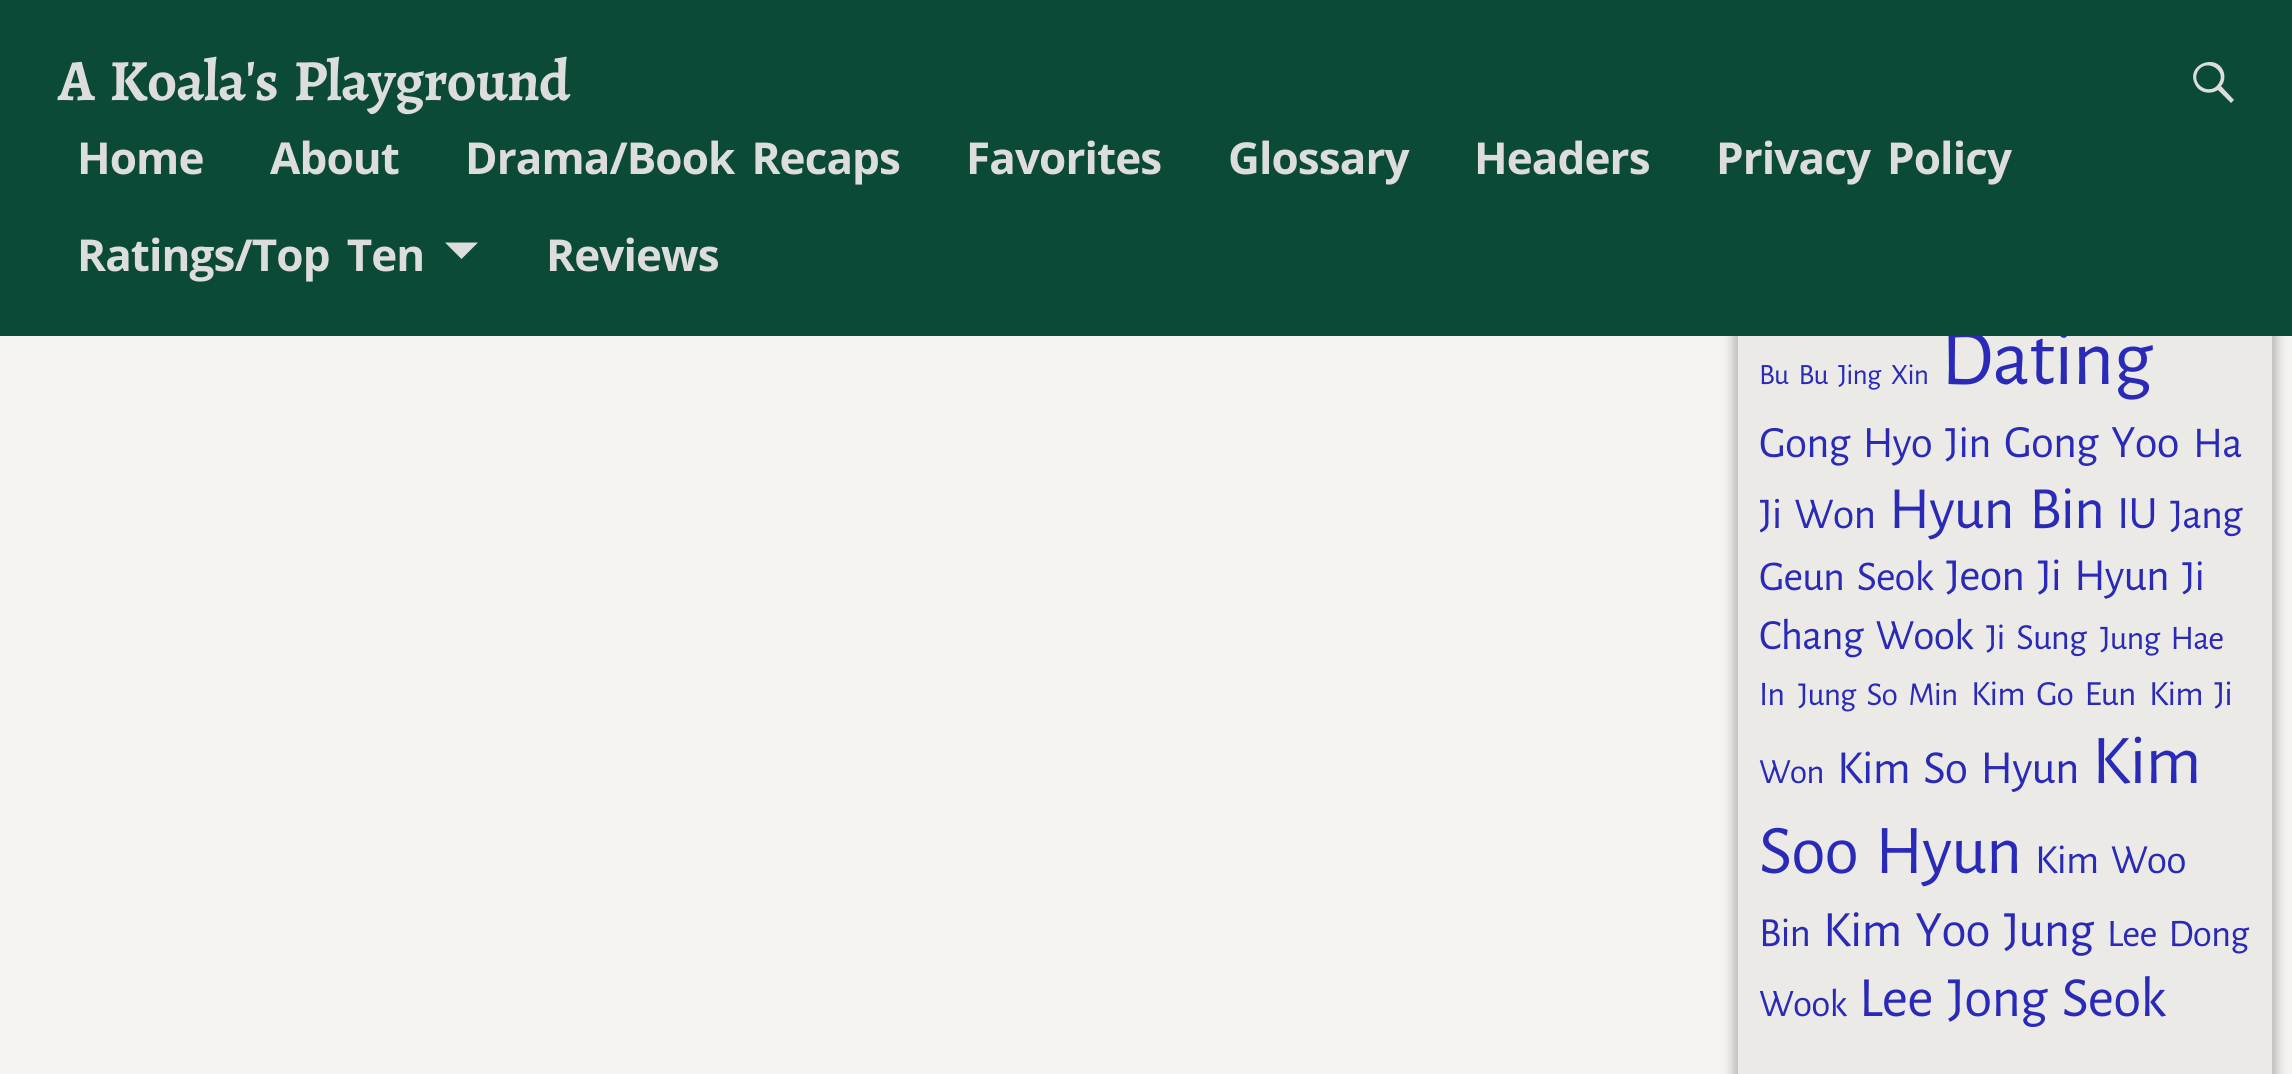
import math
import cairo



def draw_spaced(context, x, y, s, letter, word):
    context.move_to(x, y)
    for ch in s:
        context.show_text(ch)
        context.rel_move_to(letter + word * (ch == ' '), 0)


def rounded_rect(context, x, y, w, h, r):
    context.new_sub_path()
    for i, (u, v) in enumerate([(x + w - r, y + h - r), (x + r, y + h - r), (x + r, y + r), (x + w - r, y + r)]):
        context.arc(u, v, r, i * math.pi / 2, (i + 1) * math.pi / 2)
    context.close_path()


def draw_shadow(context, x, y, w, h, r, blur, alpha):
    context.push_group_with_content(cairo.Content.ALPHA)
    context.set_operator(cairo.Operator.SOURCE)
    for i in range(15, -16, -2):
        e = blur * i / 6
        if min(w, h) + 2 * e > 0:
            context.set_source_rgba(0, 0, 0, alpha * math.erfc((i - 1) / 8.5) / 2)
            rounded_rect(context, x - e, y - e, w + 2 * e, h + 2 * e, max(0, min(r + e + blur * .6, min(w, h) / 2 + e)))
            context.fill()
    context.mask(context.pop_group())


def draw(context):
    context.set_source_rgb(246 / 255, 243 / 255, 240 / 255)
    context.paint()
    context.set_source_rgb(0, 0, 0)
    draw_shadow(context, 1733, -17, 544, 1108, 0, 5.5, 0.25)
    context.set_source_rgb(236 / 255, 234 / 255, 231 / 255)
    context.rectangle(1738, 336, 534, 738)
    context.fill()
    context.select_font_face("Alegreya Sans")
    context.set_font_size(29.5)
    context.set_source_rgb(42 / 255, 42 / 255, 184 / 255)
    draw_spaced(context, 1759, 384, "Bu Bu Jing Xin", -0.9, 6.5)
    context.set_font_size(81)
    draw_spaced(context, 1941, 384, "Dating", -0.9, 0)
    context.set_source_rgb(12 / 255, 74 / 255, 56 / 255)
    context.rectangle(0, 0, 2292, 336)
    context.fill()
    context.select_font_face("Alegreya", cairo.FontSlant.NORMAL, cairo.FontWeight.BOLD)
    context.set_font_size(58.5)
    context.set_source_rgb(221 / 255, 221 / 255, 221 / 255)
    draw_spaced(context, 58, 100, "A Koala's Playground", -0.9, 6.5)
    context.new_path()
    context.move_to(2234, 100)
    context.line_to(2231, 103)
    context.line_to(2218, 90)
    context.curve_to(2210, 95, 2199, 93, 2195, 84)
    context.curve_to(2185, 64, 2218, 52, 2224, 73)
    context.curve_to(2225, 78, 2224, 83, 2221, 86)
    context.close_path()
    context.move_to(2198, 71)
    context.curve_to(2190, 85, 2211, 97, 2219, 83)
    context.curve_to(2227, 70, 2206, 58, 2198, 71)
    context.close_path()
    context.fill()
    context.select_font_face("Open Sans", cairo.FontSlant.NORMAL, cairo.FontWeight.BOLD)
    context.set_font_size(44)
    draw_spaced(context, 546, 271, "Reviews", -0.9, 0)
    context.new_path()
    context.move_to(445, 242.5)
    context.line_to(478, 242.5)
    context.line_to(461.5, 259)
    context.close_path()
    context.fill()
    draw_spaced(context, 77, 271, "Ratings/Top Ten", -0.9, 6.5)
    draw_spaced(context, 1716, 174, "Privacy Policy", -0.9, 6.5)
    draw_spaced(context, 1474, 174, "Headers", -0.9, 0)
    draw_spaced(context, 1228, 174, "Glossary", -0.9, 0)
    draw_spaced(context, 966, 174, "Favorites", -0.9, 0)
    draw_spaced(context, 465, 174, "Drama/Book Recaps", -0.9, 6.5)
    draw_spaced(context, 270, 174, "About", -0.9, 0)
    draw_spaced(context, 77, 174, "Home", -0.9, 0)
    context.select_font_face("Alegreya Sans")
    context.set_font_size(45)
    context.set_source_rgb(42 / 255, 42 / 255, 184 / 255)
    draw_spaced(context, 1759, 457, "Gong Hyo Jin", -0.9, 6.5)
    context.set_font_size(46.5)
    draw_spaced(context, 2004, 457, "Gong Yoo", -0.9, 6.5)
    context.set_font_size(44)
    draw_spaced(context, 2193, 457, "Ha", -0.9, 0)
    context.save()
    context.rectangle(1760, 220, 490, 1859)
    context.clip()
    draw_spaced(context, 1759, 528, "Ji Won", -0.9, 6.5)
    context.restore()
    context.set_font_size(60)
    draw_spaced(context, 1889, 528, "Hyun Bin", -0.9, 6.5)
    context.set_font_size(46.5)
    draw_spaced(context, 2117, 528, "IU", -0.9, 0)
    context.set_font_size(42.5)
    draw_spaced(context, 2170, 528, "Jang", -0.9, 0)
    draw_spaced(context, 1759, 590, "Geun Seok", -0.9, 6.5)
    context.set_font_size(46)
    draw_spaced(context, 1946, 590, "Jeon Ji Hyun", -0.9, 6.5)
    context.set_font_size(43.25)
    draw_spaced(context, 2182, 590, "Ji", -0.9, 0)
    draw_spaced(context, 1759, 649, "Chang Wook", -0.9, 6.5)
    context.set_font_size(37)
    draw_spaced(context, 1986, 649, "Ji Sung", -0.9, 6.5)
    context.set_font_size(34.5)
    draw_spaced(context, 2100, 649, "Jung Hae", -0.9, 6.5)
    draw_spaced(context, 1759, 705, "In", -0.9, 0)
    context.set_font_size(33.5)
    draw_spaced(context, 1798, 705, "Jung So Min", -0.9, 6.5)
    context.set_font_size(35.5)
    draw_spaced(context, 1971, 705, "Kim Go Eun", -0.9, 6.5)
    draw_spaced(context, 2149, 705, "Kim Ji", -0.9, 6.5)
    draw_spaced(context, 1759, 783, "Won", -0.9, 0)
    context.set_font_size(47.5)
    draw_spaced(context, 1837, 783, "Kim So Hyun", -0.9, 6.5)
    context.set_font_size(70)
    draw_spaced(context, 2092, 783, "Kim", -0.9, 0)
    draw_spaced(context, 1759, 873, "Soo Hyun", -0.9, 6.5)
    context.set_font_size(41.5)
    draw_spaced(context, 2035, 873, "Kim Woo", -0.9, 6.5)
    draw_spaced(context, 1759, 946, "Bin", -0.9, 0)
    context.set_font_size(51)
    draw_spaced(context, 1823, 946, "Kim Yoo Jung", -0.9, 6.5)
    context.set_font_size(39)
    draw_spaced(context, 2107, 946, "Lee Dong", -0.9, 6.5)
    draw_spaced(context, 1759, 1016, "Wook", -0.9, 0)
    context.set_font_size(57)
    draw_spaced(context, 1859, 1016, "Lee Jong Seok", -0.9, 6.5)


surface = cairo.ImageSurface(cairo.Format.RGB24, 2292, 1074)
context = cairo.Context(surface)
options = cairo.FontOptions()
options.set_hint_metrics(cairo.HintMetrics.OFF)
options.set_hint_style(cairo.HintStyle.NONE)
context.set_font_options(options)
context.set_miter_limit(4)
draw(context)
surface.write_to_png("out.png")
